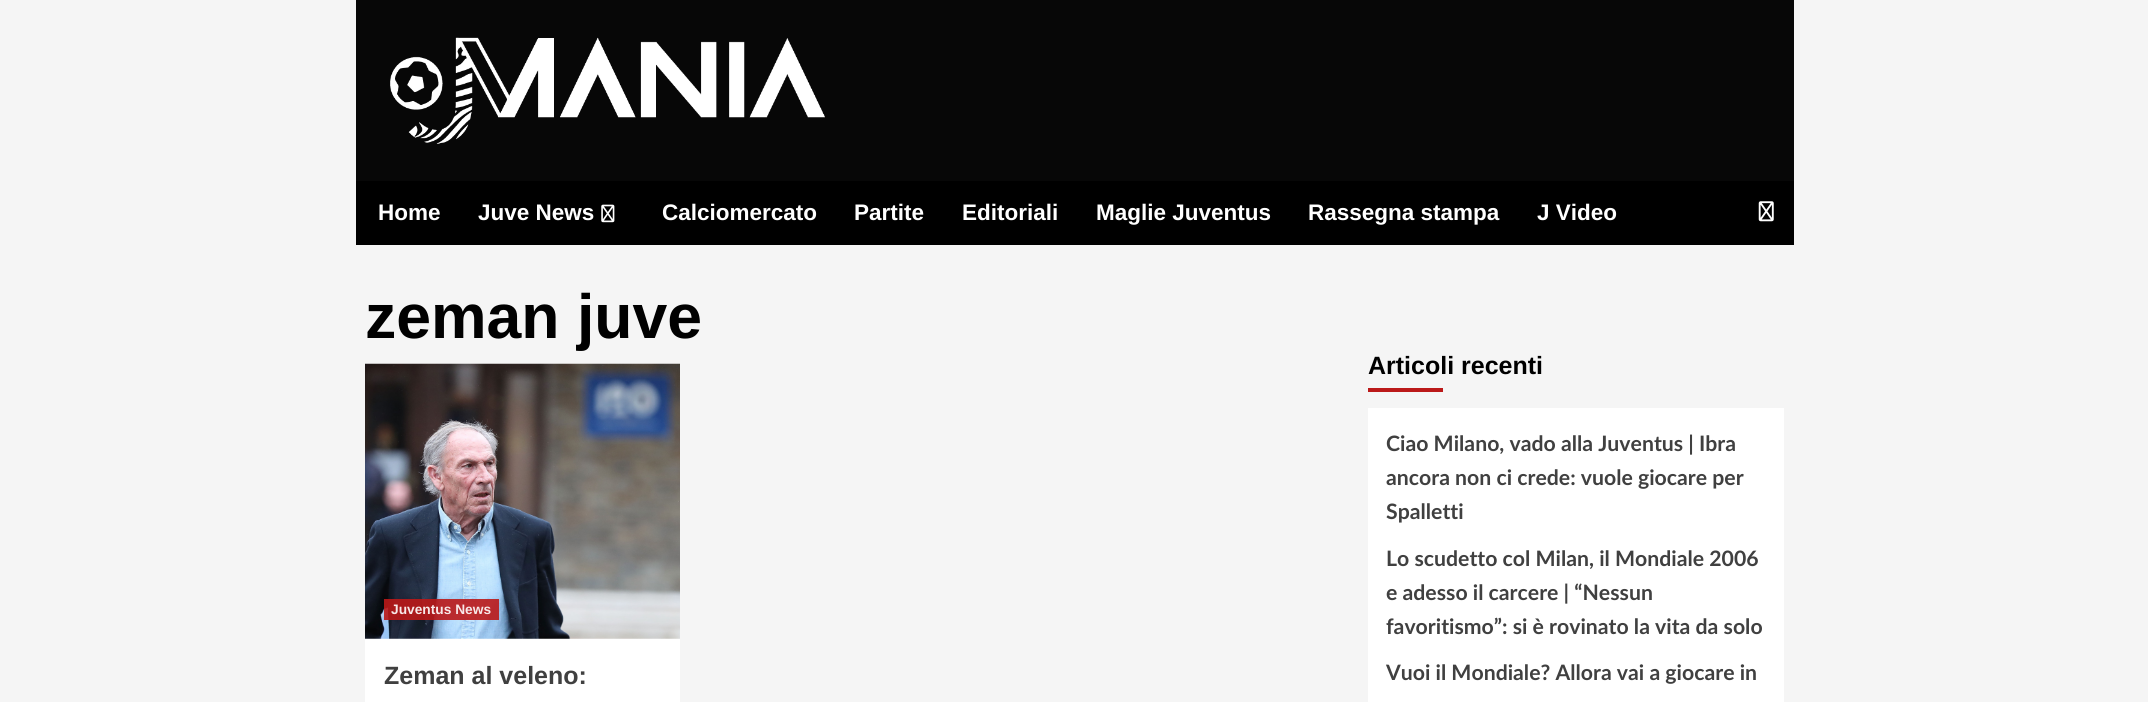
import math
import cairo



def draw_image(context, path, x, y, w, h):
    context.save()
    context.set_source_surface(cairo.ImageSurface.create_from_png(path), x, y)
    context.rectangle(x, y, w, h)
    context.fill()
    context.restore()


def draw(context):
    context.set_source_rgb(245 / 255, 245 / 255, 245 / 255)
    context.paint()
    context.set_source_rgb(7 / 255, 7 / 255, 7 / 255)
    context.rectangle(356, 0, 1438, 181)
    context.fill()
    draw_image(context, "images/1.png", 390, 37, 435, 107)
    context.set_source_rgb(0, 0, 0)
    context.rectangle(356, 181, 1438, 64)
    context.fill()
    draw_image(context, "images/2.png", 601, 204, 14, 19)
    draw_image(context, "images/3.png", 1758, 201, 16, 21)
    context.set_source_rgb(1, 1, 1)
    context.rectangle(365, 638, 315, 64)
    context.fill()
    draw_image(context, "images/4.png", 365, 363, 315, 276)
    context.set_source_rgba(187 / 255, 25 / 255, 25 / 255, 0.9)
    context.rectangle(384, 599, 115, 21)
    context.fill()
    context.set_source_rgb(187 / 255, 25 / 255, 25 / 255)
    context.rectangle(1368, 388, 75, 4)
    context.fill()
    context.set_source_rgb(1, 1, 1)
    context.rectangle(1368, 408, 416, 294)
    context.fill()
    context.select_font_face("Liberation Sans", cairo.FontSlant.NORMAL, cairo.FontWeight.BOLD)
    context.set_font_size(22.5)
    context.move_to(378, 220)
    context.show_text("Home")
    context.move_to(478, 220)
    context.show_text("Juve News")
    context.move_to(662, 220)
    context.show_text("Calciomercato")
    context.move_to(854, 220)
    context.show_text("Partite")
    context.move_to(962, 220)
    context.show_text("Editoriali")
    context.move_to(1096, 220)
    context.show_text("Maglie Juventus")
    context.move_to(1308, 220)
    context.show_text("Rassegna stampa")
    context.move_to(1537, 220)
    context.show_text("J Video")
    context.set_font_size(62.5)
    context.set_source_rgb(0, 0, 0)
    context.move_to(365, 338)
    context.show_text("zeman juve")
    context.set_font_size(13.75)
    context.set_source_rgb(247 / 255, 233 / 255, 233 / 255)
    context.move_to(391, 614)
    context.show_text("Juventus News")
    context.set_font_size(25)
    context.set_source_rgb(64 / 255, 64 / 255, 64 / 255)
    context.move_to(384, 684)
    context.show_text("Zeman al veleno:")
    context.set_source_rgb(0, 0, 0)
    context.move_to(1368, 374)
    context.show_text("Articoli recenti")
    context.select_font_face("Lato", cairo.FontSlant.NORMAL, cairo.FontWeight.BOLD)
    context.set_font_size(21.25)
    context.set_source_rgb(64 / 255, 64 / 255, 64 / 255)
    context.move_to(1386, 451)
    context.show_text("Ciao Milano, vado alla Juventus | Ibra")
    context.move_to(1386, 485)
    context.show_text("ancora non ci crede: vuole giocare per")
    context.move_to(1386, 519)
    context.show_text("Spalletti")
    context.move_to(1386, 566)
    context.show_text("Lo scudetto col Milan, il Mondiale 2006")
    context.move_to(1386, 600)
    context.show_text("e adesso il carcere | “Nessun")
    context.move_to(1386, 634)
    context.show_text("favoritismo”: si è rovinato la vita da solo")
    context.move_to(1386, 680)
    context.show_text("Vuoi il Mondiale? Allora vai a giocare in")


surface = cairo.ImageSurface(cairo.Format.RGB24, 2148, 702)
context = cairo.Context(surface)
options = cairo.FontOptions()
options.set_hint_metrics(cairo.HintMetrics.OFF)
options.set_hint_style(cairo.HintStyle.NONE)
context.set_font_options(options)
context.set_miter_limit(4)
draw(context)
surface.write_to_png("out.png")
